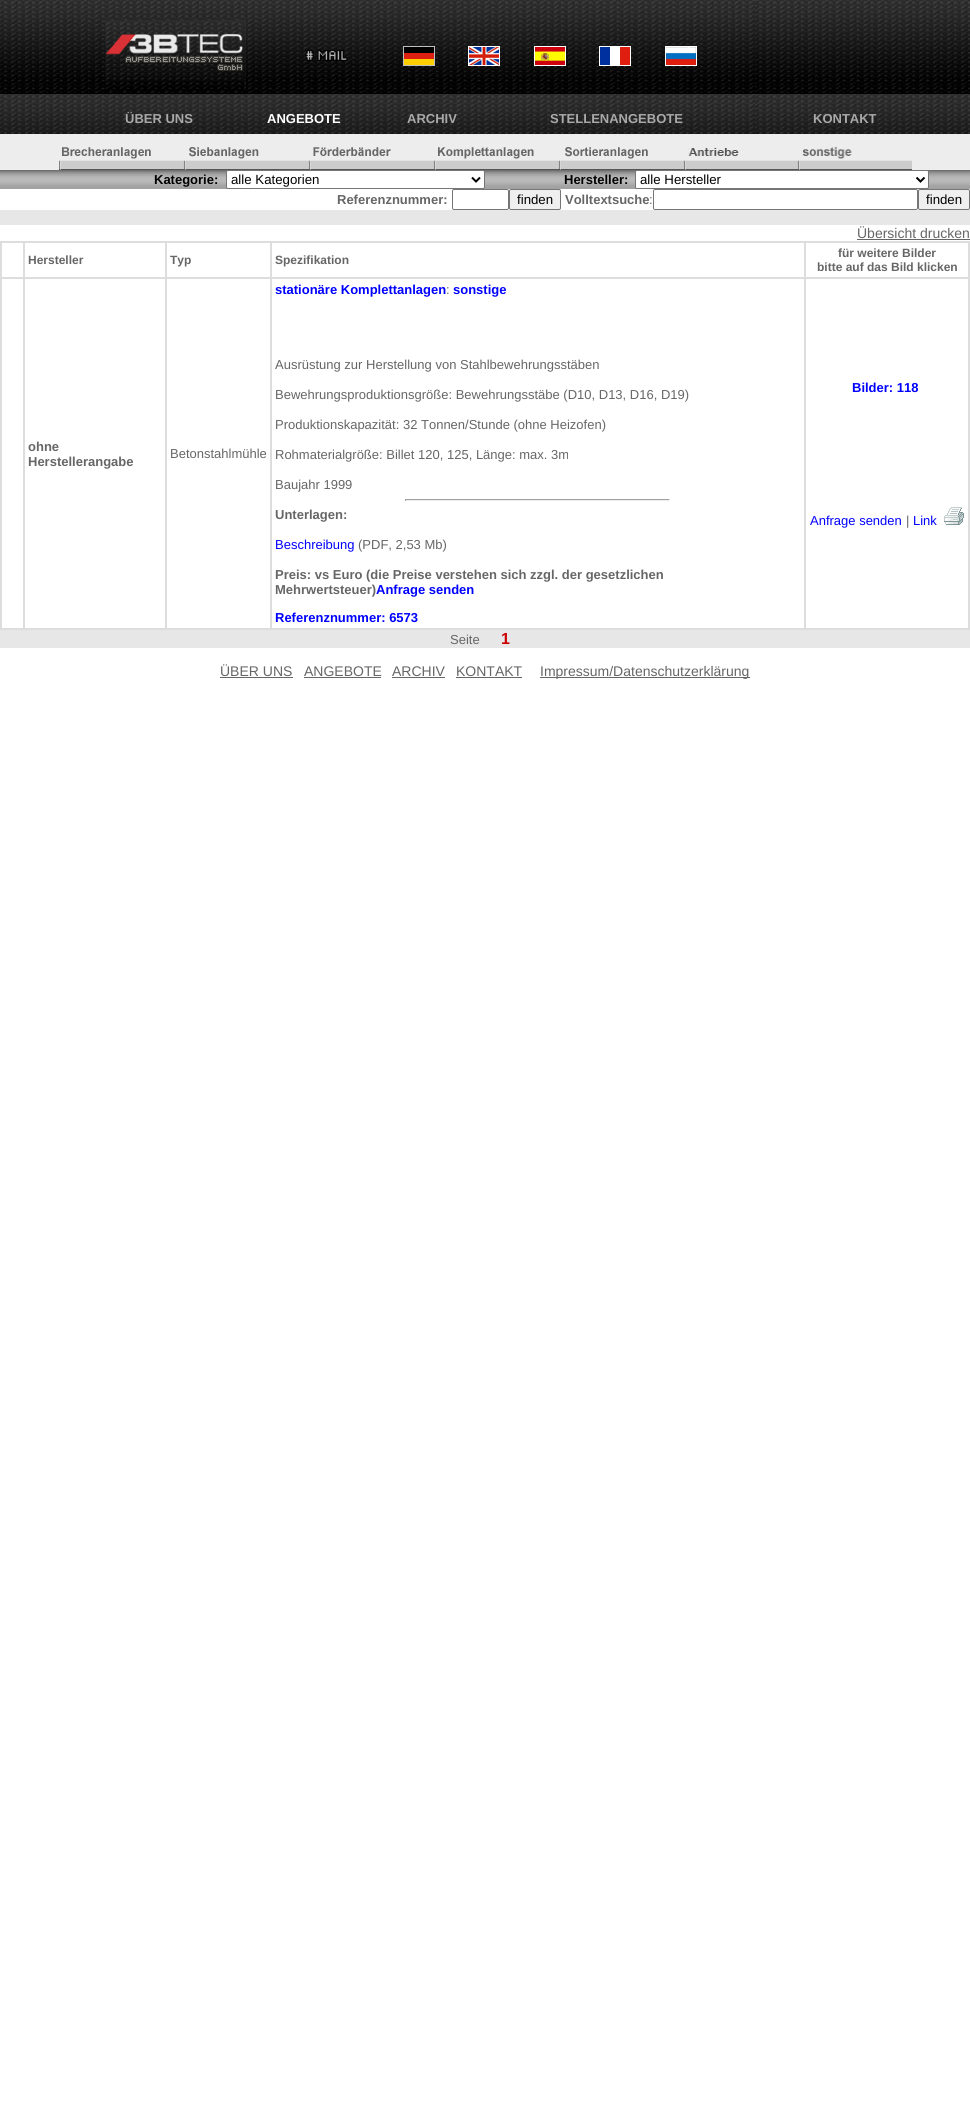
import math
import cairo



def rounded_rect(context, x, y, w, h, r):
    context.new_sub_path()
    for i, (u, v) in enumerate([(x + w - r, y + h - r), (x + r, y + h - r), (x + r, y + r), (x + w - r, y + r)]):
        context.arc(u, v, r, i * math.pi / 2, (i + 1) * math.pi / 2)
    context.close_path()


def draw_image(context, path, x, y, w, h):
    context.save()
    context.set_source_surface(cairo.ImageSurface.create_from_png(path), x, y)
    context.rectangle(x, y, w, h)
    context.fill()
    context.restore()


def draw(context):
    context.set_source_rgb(1, 1, 1)
    context.paint()
    draw_image(context, "images/1.png", 0, 0, 970, 134)
    draw_image(context, "images/2.png", 105, 20, 141, 71)
    draw_image(context, "images/3.png", 305, 49, 43, 13)
    context.rectangle(403.5, 46.5, 31, 19)
    context.set_source_rgb(192 / 255, 192 / 255, 192 / 255)
    context.set_line_width(1)
    context.stroke()
    draw_image(context, "images/4.png", 404, 47, 30, 18)
    context.rectangle(468.5, 46.5, 31, 19)
    context.set_source_rgb(1, 1, 1)
    context.stroke()
    draw_image(context, "images/5.png", 469, 47, 30, 18)
    context.rectangle(534.5, 46.5, 31, 19)
    context.stroke()
    draw_image(context, "images/6.png", 535, 47, 30, 18)
    context.rectangle(599.5, 46.5, 31, 19)
    context.stroke()
    draw_image(context, "images/7.png", 600, 47, 30, 18)
    context.rectangle(665.5, 46.5, 31, 19)
    context.stroke()
    draw_image(context, "images/8.png", 666, 47, 30, 18)
    context.set_source_rgb(237 / 255, 237 / 255, 237 / 255)
    context.rectangle(0, 134, 970, 36)
    context.fill()
    draw_image(context, "images/9.png", 59, 147, 125, 23)
    draw_image(context, "images/10.png", 184, 147, 125, 23)
    draw_image(context, "images/11.png", 309, 147, 125, 23)
    draw_image(context, "images/12.png", 434, 147, 125, 23)
    draw_image(context, "images/13.png", 559, 147, 125, 23)
    draw_image(context, "images/14.png", 684, 148, 114, 22)
    draw_image(context, "images/15.png", 798, 147, 114, 23)
    draw_image(context, "images/16.png", 0, 170, 970, 19)
    context.set_source_rgb(1, 1, 1)
    rounded_rect(context, 226.5, 170.5, 258, 18, 1.5)
    context.fill_preserve()
    context.set_source_rgb(118 / 255, 118 / 255, 118 / 255)
    context.stroke()
    context.new_path()
    context.move_to(472, 177.5)
    context.line_to(476, 181.5)
    context.line_to(480, 177.5)
    context.set_source_rgb(0, 0, 0)
    context.set_line_width(2)
    context.stroke()
    context.set_source_rgb(1, 1, 1)
    rounded_rect(context, 635.5, 170.5, 293, 18, 1.5)
    context.fill_preserve()
    context.set_source_rgb(118 / 255, 118 / 255, 118 / 255)
    context.set_line_width(1)
    context.stroke()
    context.new_path()
    context.move_to(916.5, 177.5)
    context.line_to(920.5, 181.5)
    context.line_to(924.5, 177.5)
    context.set_source_rgb(0, 0, 0)
    context.set_line_width(2)
    context.stroke()
    rounded_rect(context, 452.5, 189.5, 56, 20, 1.5)
    context.set_source_rgb(118 / 255, 118 / 255, 118 / 255)
    context.set_line_width(1)
    context.stroke()
    context.set_source_rgb(239 / 255, 239 / 255, 239 / 255)
    rounded_rect(context, 509.5, 189.5, 51, 20, 1.5)
    context.fill_preserve()
    context.set_source_rgb(118 / 255, 118 / 255, 118 / 255)
    context.stroke()
    rounded_rect(context, 653.5, 189.5, 264, 20, 1.5)
    context.stroke()
    context.set_source_rgb(239 / 255, 239 / 255, 239 / 255)
    rounded_rect(context, 918.5, 189.5, 51, 20, 1.5)
    context.fill_preserve()
    context.set_source_rgb(118 / 255, 118 / 255, 118 / 255)
    context.stroke()
    context.set_source_rgb(231 / 255, 231 / 255, 231 / 255)
    context.rectangle(0, 210, 970, 15)
    context.fill()
    context.set_source_rgb(102 / 255, 102 / 255, 102 / 255)
    context.rectangle(857, 239, 113, 1)
    context.fill()
    context.rectangle(0.5, 241.5, 969, 388)
    context.set_source_rgb(221 / 255, 221 / 255, 221 / 255)
    context.stroke()
    context.rectangle(1.5, 242.5, 22, 35)
    context.stroke()
    context.rectangle(24.5, 242.5, 141, 35)
    context.stroke()
    context.rectangle(166.5, 242.5, 104, 35)
    context.stroke()
    context.rectangle(271.5, 242.5, 533, 35)
    context.stroke()
    context.rectangle(805.5, 242.5, 163, 35)
    context.stroke()
    context.rectangle(1.5, 278.5, 22, 350)
    context.stroke()
    context.rectangle(24.5, 278.5, 141, 350)
    context.stroke()
    context.rectangle(166.5, 278.5, 104, 350)
    context.stroke()
    context.rectangle(271.5, 278.5, 533, 350)
    context.stroke()
    context.set_source_rgb(159 / 255, 159 / 255, 159 / 255)
    context.rectangle(405, 499, 265, 1)
    context.fill()
    context.set_source_rgb(238 / 255, 238 / 255, 238 / 255)
    context.rectangle(669, 499, 1, 2)
    context.fill()
    context.rectangle(405, 500, 265, 1)
    context.fill()
    context.set_source_rgb(159 / 255, 159 / 255, 159 / 255)
    context.rectangle(405, 499, 1, 2)
    context.fill()
    context.rectangle(805.5, 278.5, 163, 350)
    context.set_source_rgb(221 / 255, 221 / 255, 221 / 255)
    context.stroke()
    draw_image(context, "images/17.png", 944, 507, 20, 18)
    context.set_source_rgb(231 / 255, 231 / 255, 231 / 255)
    context.rectangle(0, 630, 970, 18)
    context.fill()
    context.set_source_rgb(102 / 255, 102 / 255, 102 / 255)
    context.rectangle(220, 677, 73, 1)
    context.fill()
    context.rectangle(304, 677, 77, 1)
    context.fill()
    context.rectangle(392, 677, 53, 1)
    context.fill()
    context.rectangle(456, 677, 66, 1)
    context.fill()
    context.rectangle(540, 677, 210, 1)
    context.fill()
    context.select_font_face("Liberation Sans", cairo.FontSlant.NORMAL, cairo.FontWeight.BOLD)
    context.set_font_size(13)
    context.set_source_rgb(169 / 255, 169 / 255, 169 / 255)
    context.move_to(125, 123)
    context.show_text("ÜBER UNS")
    context.set_source_rgb(1, 1, 1)
    context.move_to(267, 123)
    context.show_text("ANGEBOTE")
    context.set_source_rgb(169 / 255, 169 / 255, 169 / 255)
    context.move_to(407, 123)
    context.show_text("ARCHIV")
    context.move_to(550, 123)
    context.show_text("STELLENANGEBOTE")
    context.move_to(813, 123)
    context.show_text("KONTAKT")
    context.set_source_rgb(0, 0, 0)
    context.move_to(154, 184)
    context.show_text("Kategorie:")
    context.select_font_face("Liberation Sans")
    context.set_font_size(13.25)
    context.move_to(231, 184)
    context.show_text("alle Kategorien")
    context.select_font_face("Liberation Sans", cairo.FontSlant.NORMAL, cairo.FontWeight.BOLD)
    context.set_font_size(13)
    context.move_to(564, 184)
    context.show_text("Hersteller:")
    context.select_font_face("Liberation Sans")
    context.set_font_size(13.25)
    context.move_to(640, 184)
    context.show_text("alle Hersteller")
    context.select_font_face("Liberation Sans", cairo.FontSlant.NORMAL, cairo.FontWeight.BOLD)
    context.set_font_size(13)
    context.set_source_rgb(102 / 255, 102 / 255, 102 / 255)
    context.move_to(337, 204)
    context.show_text("Referenznummer:")
    context.select_font_face("Liberation Sans")
    context.set_font_size(13.25)
    context.set_source_rgb(0, 0, 0)
    context.move_to(517, 204)
    context.show_text("finden")
    context.select_font_face("Liberation Sans", cairo.FontSlant.NORMAL, cairo.FontWeight.BOLD)
    context.set_font_size(13)
    context.set_source_rgb(102 / 255, 102 / 255, 102 / 255)
    context.move_to(565, 204)
    context.show_text("Volltextsuche")
    context.select_font_face("Liberation Sans")
    context.move_to(649, 204)
    context.show_text(":")
    context.set_font_size(13.25)
    context.set_source_rgb(0, 0, 0)
    context.move_to(926, 204)
    context.show_text("finden")
    context.set_font_size(14)
    context.set_source_rgb(102 / 255, 102 / 255, 102 / 255)
    context.move_to(857, 238)
    context.show_text("Übersicht drucken")
    context.select_font_face("Liberation Sans", cairo.FontSlant.NORMAL, cairo.FontWeight.BOLD)
    context.set_font_size(12)
    context.move_to(28, 264)
    context.show_text("Hersteller")
    context.move_to(170, 264)
    context.show_text("Typ")
    context.move_to(275, 264)
    context.show_text("Spezifikation")
    context.move_to(838, 257)
    context.show_text("für weitere Bilder")
    context.move_to(817, 271)
    context.show_text("bitte auf das Bild klicken")
    context.set_font_size(13)
    context.move_to(28, 451)
    context.show_text("ohne")
    context.move_to(28, 466)
    context.show_text("Herstellerangabe")
    context.select_font_face("Liberation Sans")
    context.move_to(170, 458)
    context.show_text("Betonstahlmühle")
    context.select_font_face("Liberation Sans", cairo.FontSlant.NORMAL, cairo.FontWeight.BOLD)
    context.set_source_rgb(0, 0, 1)
    context.move_to(275, 294)
    context.show_text("stationäre Komplettanlagen")
    context.select_font_face("Liberation Sans")
    context.set_source_rgb(102 / 255, 102 / 255, 102 / 255)
    context.move_to(446, 294)
    context.show_text(":")
    context.select_font_face("Liberation Sans", cairo.FontSlant.NORMAL, cairo.FontWeight.BOLD)
    context.set_source_rgb(0, 0, 1)
    context.move_to(453, 294)
    context.show_text("sonstige")
    context.select_font_face("Liberation Sans")
    context.set_source_rgb(102 / 255, 102 / 255, 102 / 255)
    context.move_to(275, 369)
    context.show_text("Ausrüstung zur Herstellung von Stahlbewehrungsstäben")
    context.move_to(275, 399)
    context.show_text("Bewehrungsproduktionsgröße: Bewehrungsstäbe (D10, D13, D16, D19)")
    context.move_to(275, 429)
    context.show_text("Produktionskapazität: 32 Tonnen/Stunde (ohne Heizofen)")
    context.move_to(275, 459)
    context.show_text("Rohmaterialgröße: Billet 120, 125, Länge: max. 3m")
    context.move_to(275, 489)
    context.show_text("Baujahr 1999")
    context.select_font_face("Liberation Sans", cairo.FontSlant.NORMAL, cairo.FontWeight.BOLD)
    context.move_to(275, 519)
    context.show_text("Unterlagen:")
    context.select_font_face("Liberation Sans")
    context.set_source_rgb(0, 0, 1)
    context.move_to(275, 549)
    context.show_text("Beschreibung")
    context.set_source_rgb(102 / 255, 102 / 255, 102 / 255)
    context.move_to(358, 549)
    context.show_text("(PDF, 2,53 Mb)")
    context.select_font_face("Liberation Sans", cairo.FontSlant.NORMAL, cairo.FontWeight.BOLD)
    context.move_to(275, 579)
    context.show_text("Preis: vs Euro (die Preise verstehen sich zzgl. der gesetzlichen")
    context.move_to(275, 594)
    context.show_text("Mehrwertsteuer)")
    context.set_source_rgb(0, 0, 1)
    context.move_to(376, 594)
    context.show_text("Anfrage senden")
    context.move_to(275, 622)
    context.show_text("Referenznummer: 6573")
    context.move_to(852, 392)
    context.show_text("Bilder: 118")
    context.select_font_face("Liberation Sans")
    context.move_to(810, 525)
    context.show_text("Anfrage senden")
    context.set_source_rgb(102 / 255, 102 / 255, 102 / 255)
    context.move_to(906, 525)
    context.show_text("|")
    context.set_source_rgb(0, 0, 1)
    context.move_to(913, 525)
    context.show_text("Link")
    context.set_source_rgb(102 / 255, 102 / 255, 102 / 255)
    context.move_to(450, 644)
    context.show_text("Seite")
    context.select_font_face("Liberation Sans", cairo.FontSlant.NORMAL, cairo.FontWeight.BOLD)
    context.set_font_size(16)
    context.set_source_rgb(204 / 255, 0, 0)
    context.move_to(501, 644)
    context.show_text("1")
    context.select_font_face("Liberation Sans")
    context.set_font_size(14)
    context.set_source_rgb(102 / 255, 102 / 255, 102 / 255)
    context.move_to(220, 676)
    context.show_text("ÜBER UNS")
    context.move_to(304, 676)
    context.show_text("ANGEBOTE")
    context.move_to(392, 676)
    context.show_text("ARCHIV")
    context.move_to(456, 676)
    context.show_text("KONTAKT")
    context.move_to(540, 676)
    context.show_text("Impressum/Datenschutzerklärung")


surface = cairo.ImageSurface(cairo.Format.RGB24, 970, 2101)
context = cairo.Context(surface)
options = cairo.FontOptions()
options.set_hint_metrics(cairo.HintMetrics.OFF)
options.set_hint_style(cairo.HintStyle.NONE)
context.set_font_options(options)
context.set_miter_limit(4)
draw(context)
surface.write_to_png("out.png")
